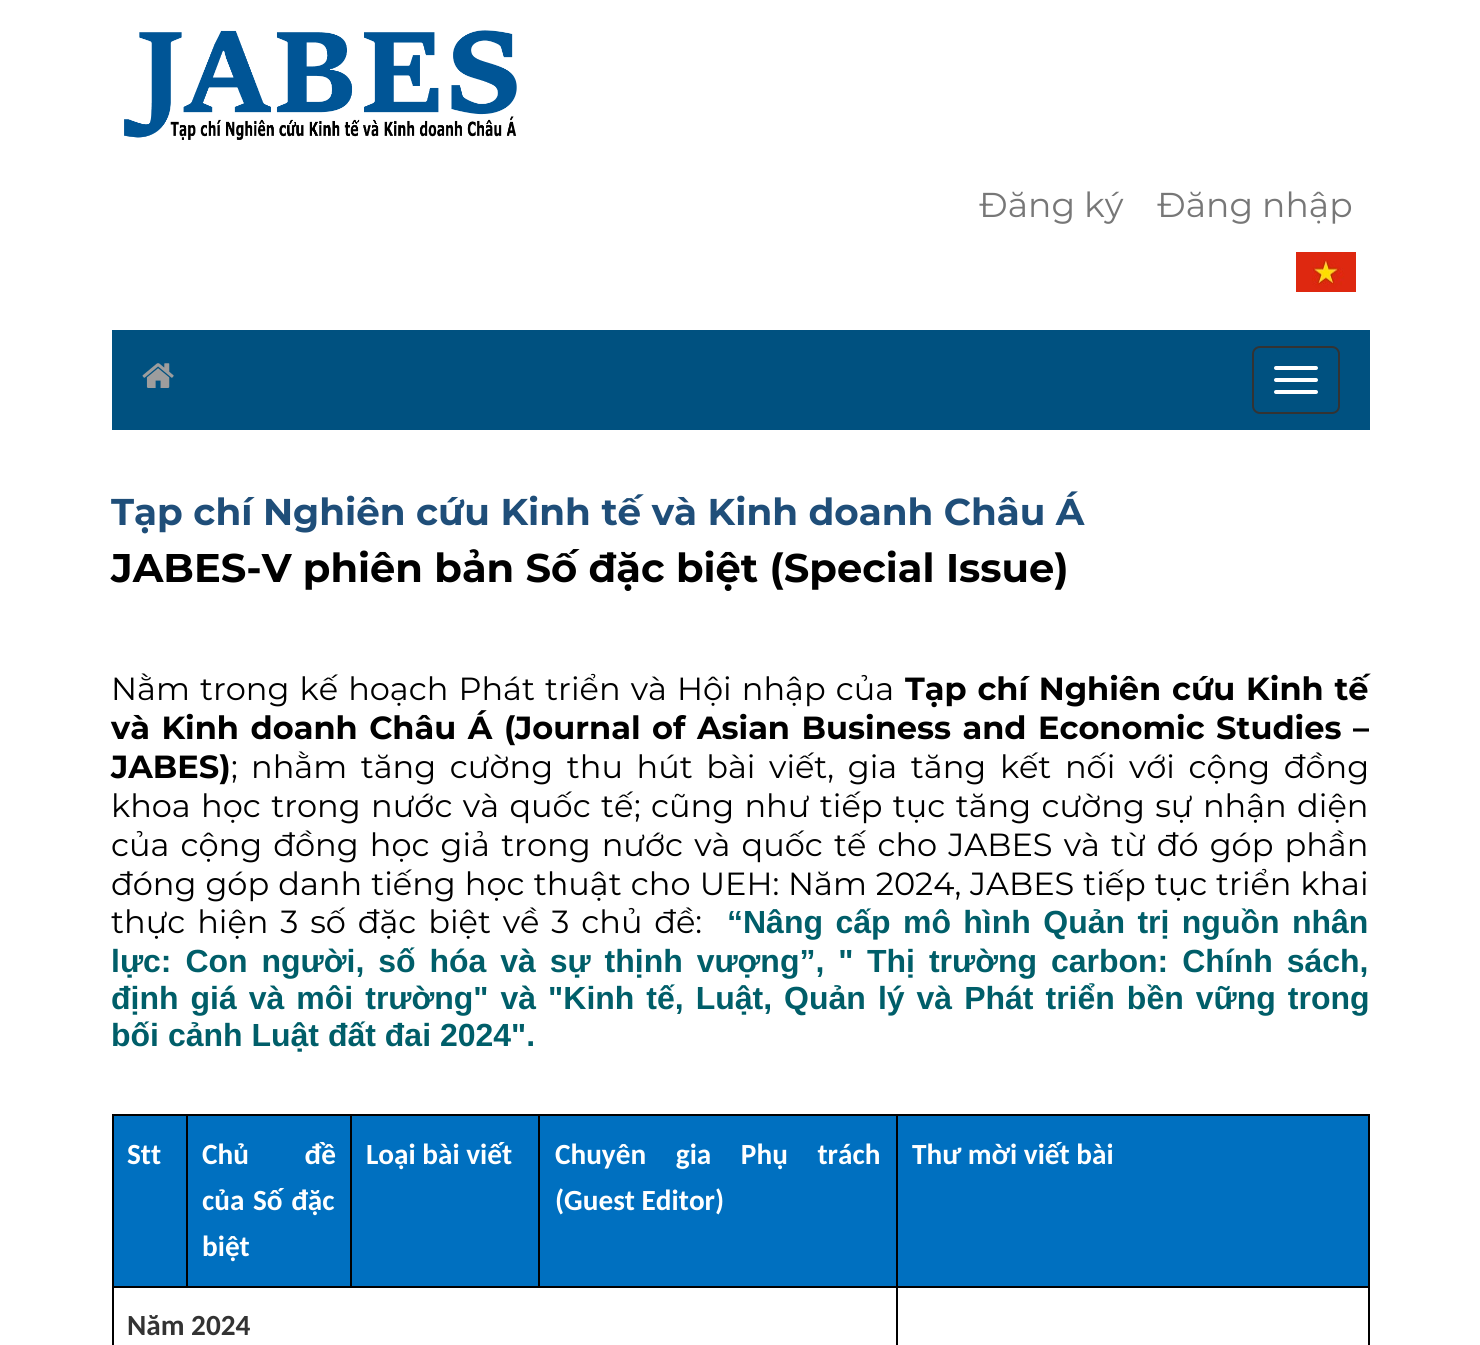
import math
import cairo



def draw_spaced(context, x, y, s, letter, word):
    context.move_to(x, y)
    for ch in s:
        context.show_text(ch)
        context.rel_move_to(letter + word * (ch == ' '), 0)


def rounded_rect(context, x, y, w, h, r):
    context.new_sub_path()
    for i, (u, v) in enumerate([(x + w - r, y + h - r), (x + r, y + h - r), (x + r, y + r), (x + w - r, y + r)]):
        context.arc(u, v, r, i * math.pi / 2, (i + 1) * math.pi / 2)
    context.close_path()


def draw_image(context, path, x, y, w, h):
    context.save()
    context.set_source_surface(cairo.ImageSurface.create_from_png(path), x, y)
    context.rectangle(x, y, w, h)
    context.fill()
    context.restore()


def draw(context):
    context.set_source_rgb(1, 1, 1)
    context.paint()
    draw_image(context, "images/1.png", 124, 30, 393, 110)
    draw_image(context, "images/2.png", 1296, 252, 60, 40)
    context.set_source_rgb(0, 81 / 255, 128 / 255)
    context.rectangle(112, 330, 1258, 100)
    context.fill()
    draw_image(context, "images/3.png", 142, 363, 32, 25)
    rounded_rect(context, 1253, 347, 86, 66, 7)
    context.set_source_rgb(51 / 255, 51 / 255, 51 / 255)
    context.stroke()
    context.set_source_rgb(1, 1, 1)
    rounded_rect(context, 1274, 366, 44, 4, 2)
    context.fill()
    rounded_rect(context, 1274, 378, 44, 4, 2)
    context.fill()
    rounded_rect(context, 1274, 390, 44, 4, 2)
    context.fill()
    context.set_source_rgb(0, 112 / 255, 192 / 255)
    context.rectangle(114, 1116, 72, 170)
    context.fill()
    context.set_source_rgb(0, 0, 0)
    context.rectangle(112, 1114, 1258, 2)
    context.fill()
    context.rectangle(1368, 1286, 2, 59)
    context.fill()
    context.rectangle(1368, 1114, 2, 174)
    context.fill()
    context.rectangle(896, 1286, 2, 59)
    context.fill()
    context.rectangle(896, 1286, 474, 2)
    context.fill()
    context.rectangle(896, 1114, 2, 174)
    context.fill()
    context.rectangle(538, 1286, 360, 2)
    context.fill()
    context.rectangle(538, 1114, 2, 174)
    context.fill()
    context.rectangle(350, 1286, 190, 2)
    context.fill()
    context.rectangle(350, 1114, 2, 174)
    context.fill()
    context.rectangle(186, 1286, 166, 2)
    context.fill()
    context.rectangle(186, 1114, 2, 174)
    context.fill()
    context.rectangle(112, 1286, 2, 59)
    context.fill()
    context.rectangle(112, 1286, 76, 2)
    context.fill()
    context.rectangle(112, 1114, 2, 174)
    context.fill()
    context.set_source_rgb(0, 112 / 255, 192 / 255)
    context.rectangle(188, 1116, 162, 170)
    context.fill()
    context.rectangle(352, 1116, 186, 170)
    context.fill()
    context.rectangle(540, 1116, 356, 170)
    context.fill()
    context.rectangle(898, 1116, 470, 170)
    context.fill()
    context.select_font_face("Montserrat")
    context.set_font_size(34.5)
    context.set_source_rgb(119 / 255, 119 / 255, 119 / 255)
    context.move_to(979, 217)
    context.show_text("Đăng ký")
    context.move_to(1157, 217)
    context.show_text("Đăng nhập")
    context.select_font_face("Montserrat", cairo.FontSlant.NORMAL, cairo.FontWeight.BOLD)
    context.set_font_size(37.3)
    context.set_source_rgb(31 / 255, 78 / 255, 121 / 255)
    context.move_to(111, 525)
    context.show_text("Tạp chí Nghiên cứu Kinh tế và Kinh doanh Châu Á")
    context.set_font_size(40)
    context.set_source_rgb(0, 0, 0)
    context.move_to(111, 582)
    context.show_text("JABES-V phiên bản Số đặc biệt (Special Issue)")
    context.select_font_face("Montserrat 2")
    context.set_font_size(32)
    draw_spaced(context, 111, 700, "Nằm trong kế hoạch Phát triển và Hội nhập của", 0, 1.75)
    context.select_font_face("Montserrat", cairo.FontSlant.NORMAL, cairo.FontWeight.BOLD)
    draw_spaced(context, 905, 700, "Tạp chí Nghiên cứu Kinh tế", 0, 1.75)
    draw_spaced(context, 111, 739, "và Kinh doanh Châu Á", 0, 2.5)
    context.move_to(504, 739)
    context.show_text("(")
    draw_spaced(context, 515, 739, "Journal of Asian Business and Economic Studies", 0, 2.5)
    context.move_to(1353, 739)
    context.show_text("–")
    context.move_to(111, 778)
    context.show_text("JABES)")
    context.select_font_face("Montserrat 2")
    context.move_to(231, 778)
    context.show_text(";")
    draw_spaced(context, 251, 778, "nhằm tăng cường thu hút bài viết, gia tăng kết nối với cộng đồng", 0, 5.25)
    draw_spaced(context, 111, 817, "khoa học trong nước và quốc tế", 0, 2)
    context.move_to(634, 817)
    context.show_text(";")
    draw_spaced(context, 651, 817, "cũng như tiếp tục tăng cường sự nhận diện", 0, 2)
    draw_spaced(context, 111, 856, "của cộng đồng học giả trong nước và quốc tế cho JABES và từ đó góp phần", 0, 2.75)
    draw_spaced(context, 111, 895, "đóng góp danh tiếng học thuật cho UEH:", 0, 0.75)
    draw_spaced(context, 788, 895, "Năm 2024, JABES tiếp tục triển khai", 0, 0.5)
    draw_spaced(context, 111, 933, "thực hiện 3 số đặc biệt về 3 chủ đề:", 0, 3.5)
    context.select_font_face("Liberation Sans", cairo.FontSlant.NORMAL, cairo.FontWeight.BOLD)
    context.set_source_rgb(0, 94 / 255, 105 / 255)
    draw_spaced(context, 727, 933, "“Nâng cấp mô hình Quản trị nguồn nhân", 0, 3.5)
    draw_spaced(context, 111, 972, "lực: Con người, số hóa và sự thịnh vượng”, \"", 0, 5)
    draw_spaced(context, 867, 972, "Thị trường carbon: Chính sách,", 0, 5)
    draw_spaced(context, 111, 1009, "định giá và môi trường\" và \"Kinh tế, Luật, Quản lý và Phát triển bền vững trong", 0, 3.1)
    context.move_to(111, 1046)
    context.show_text("bối cảnh Luật đất đai 2024\".")
    context.select_font_face("Carlito", cairo.FontSlant.NORMAL, cairo.FontWeight.BOLD)
    context.set_font_size(29.25)
    context.set_source_rgb(1, 1, 1)
    context.move_to(127, 1164)
    context.show_text("Stt")
    draw_spaced(context, 202, 1164, "Chủ đề", 0, 49)
    draw_spaced(context, 202, 1210, "của Số đặc", 0, 2)
    context.move_to(202, 1256)
    context.show_text("biệt")
    context.move_to(366, 1164)
    context.show_text("Loại bài viết")
    draw_spaced(context, 555, 1164, "Chuyên gia Phụ trách", 0, 23)
    context.move_to(555, 1210)
    context.show_text("(Guest Editor)")
    context.move_to(912, 1164)
    context.show_text("Thư mời viết bài")
    context.set_source_rgb(51 / 255, 51 / 255, 51 / 255)
    context.move_to(127, 1335)
    context.show_text("Năm 2024")


surface = cairo.ImageSurface(cairo.Format.RGB24, 1480, 1345)
context = cairo.Context(surface)
options = cairo.FontOptions()
options.set_hint_metrics(cairo.HintMetrics.OFF)
options.set_hint_style(cairo.HintStyle.NONE)
context.set_font_options(options)
context.set_miter_limit(4)
draw(context)
surface.write_to_png("out.png")
